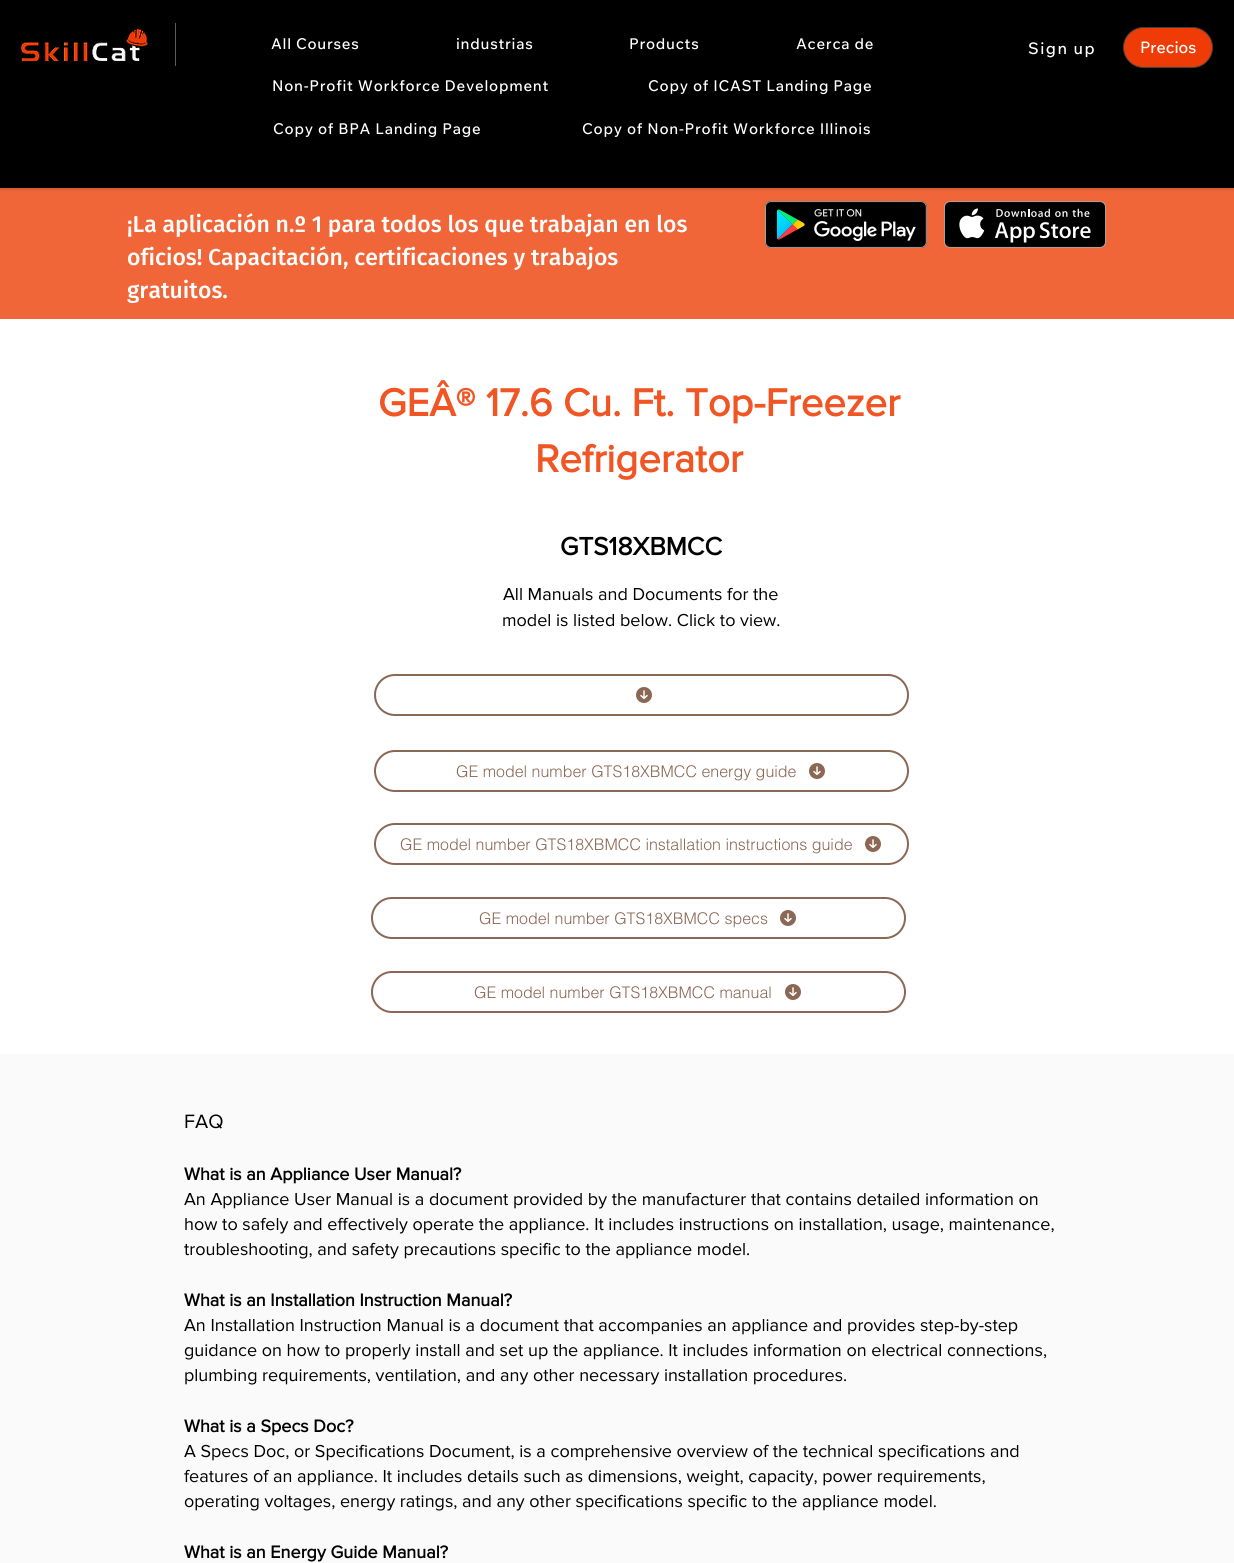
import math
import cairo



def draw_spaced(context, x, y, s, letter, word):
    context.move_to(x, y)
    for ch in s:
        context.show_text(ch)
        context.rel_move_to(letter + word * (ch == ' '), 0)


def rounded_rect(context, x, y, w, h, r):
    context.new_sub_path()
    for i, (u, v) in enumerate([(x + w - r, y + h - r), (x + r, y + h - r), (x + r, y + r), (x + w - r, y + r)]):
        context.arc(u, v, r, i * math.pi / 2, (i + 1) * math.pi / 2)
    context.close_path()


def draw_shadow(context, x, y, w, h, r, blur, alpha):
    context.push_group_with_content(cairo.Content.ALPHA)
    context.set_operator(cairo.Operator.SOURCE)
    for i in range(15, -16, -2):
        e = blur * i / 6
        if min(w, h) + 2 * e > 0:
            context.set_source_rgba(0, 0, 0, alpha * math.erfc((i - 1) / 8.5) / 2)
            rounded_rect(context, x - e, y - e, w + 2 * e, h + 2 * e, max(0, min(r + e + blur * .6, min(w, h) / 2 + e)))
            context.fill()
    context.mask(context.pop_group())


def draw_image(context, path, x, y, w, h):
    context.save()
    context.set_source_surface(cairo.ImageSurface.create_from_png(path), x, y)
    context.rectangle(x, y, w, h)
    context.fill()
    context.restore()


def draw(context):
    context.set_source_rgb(1, 1, 1)
    context.paint()
    context.set_source_rgb(241 / 255, 102 / 255, 56 / 255)
    context.rectangle(0, 188, 1234, 131)
    context.fill()
    context.set_source_rgb(0, 0, 0)
    draw_shadow(context, 0, 0, 1234, 188, 0, 2.5, 0.27)
    context.set_source_rgb(0, 0, 0)
    context.rectangle(0, 0, 1234, 188)
    context.fill()
    draw_image(context, "images/1.png", 21, 28, 127, 33)
    context.set_source_rgb(92 / 255, 92 / 255, 92 / 255)
    context.rectangle(175, 23, 1, 43)
    context.fill()
    context.set_source_rgb(239 / 255, 60 / 255, 7 / 255)
    rounded_rect(context, 1123.5, 27.5, 89, 40, 20)
    context.fill_preserve()
    context.set_source_rgb(64 / 255, 64 / 255, 64 / 255)
    context.set_line_width(1)
    context.stroke()
    draw_image(context, "images/2.png", 765, 201, 162, 47)
    draw_image(context, "images/3.png", 944, 201, 162, 47)
    rounded_rect(context, 375, 675, 533, 40, 20)
    context.set_source_rgb(139 / 255, 103 / 255, 85 / 255)
    context.set_line_width(2)
    context.stroke()
    draw_image(context, "images/4.png", 636, 687, 16, 16)
    rounded_rect(context, 375, 751, 533, 40, 20)
    context.stroke()
    draw_image(context, "images/4.png", 809, 763, 16, 16)
    rounded_rect(context, 375, 824, 533, 40, 20)
    context.stroke()
    draw_image(context, "images/4.png", 865, 836, 16, 16)
    rounded_rect(context, 372, 898, 533, 40, 20)
    context.stroke()
    draw_image(context, "images/4.png", 780, 910, 16, 16)
    rounded_rect(context, 372, 972, 533, 40, 20)
    context.stroke()
    draw_image(context, "images/4.png", 785, 984, 16, 16)
    context.set_source_rgb(250 / 255, 250 / 255, 250 / 255)
    context.rectangle(0, 1054, 1234, 509)
    context.fill()
    context.select_font_face("Wix Madefor Text Medium")
    context.set_font_size(15)
    context.set_source_rgb(1, 1, 1)
    draw_spaced(context, 271, 49, "All Courses", 0.75, 0)
    draw_spaced(context, 456, 49, "industrias", 0.75, 0)
    draw_spaced(context, 629, 49, "Products", 0.75, 0)
    draw_spaced(context, 796, 49, "Acerca de", 0.75, 0)
    draw_spaced(context, 272, 91, "Non-Profit Workforce Development", 0.75, 0)
    draw_spaced(context, 648, 91, "Copy of ICAST Landing Page", 0.75, 0)
    draw_spaced(context, 273, 134, "Copy of BPA Landing Page", 0.75, 0)
    draw_spaced(context, 582, 134, "Copy of Non-Profit Workforce Illinois", 0.75, 0)
    context.set_font_size(16)
    draw_spaced(context, 1028, 54, "Sign up", 1.5, 0)
    context.move_to(1140, 53)
    context.show_text("Precios")
    context.select_font_face("Fira Sans Medium")
    context.set_font_size(23)
    context.move_to(127, 232)
    context.show_text("¡La aplicación n.º 1 para todos los que trabajan en los")
    context.move_to(127, 265)
    context.show_text("oficios! Capacitación, certificaciones y trabajos")
    context.move_to(127, 298)
    context.show_text("gratuitos.")
    context.select_font_face("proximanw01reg", cairo.FontSlant.NORMAL, cairo.FontWeight.BOLD)
    context.set_font_size(40)
    context.set_source_rgb(240 / 255, 85 / 255, 35 / 255)
    context.move_to(378, 416)
    context.show_text("GEÂ® 17.6 Cu. Ft. Top-Freezer")
    context.move_to(535, 472)
    context.show_text("Refrigerator")
    context.set_font_size(26)
    context.set_source_rgb(0, 0, 0)
    context.move_to(560, 555)
    context.show_text("GTS18XBMCC")
    context.select_font_face("proximanw01reg")
    context.set_font_size(18)
    context.move_to(503, 600)
    context.show_text("All Manuals and Documents for the")
    context.move_to(502, 626)
    context.show_text("model is listed below. Click to view.")
    context.select_font_face("helvetica Light")
    context.set_font_size(16)
    context.set_source_rgb(139 / 255, 103 / 255, 85 / 255)
    context.move_to(456, 777)
    context.show_text("GE model number GTS18XBMCC energy guide")
    context.move_to(400, 850)
    context.show_text("GE model number GTS18XBMCC installation instructions guide")
    context.move_to(479, 924)
    context.show_text("GE model number GTS18XBMCC specs")
    context.move_to(474, 998)
    context.show_text("GE model number GTS18XBMCC manual")
    context.select_font_face("proximanw01reg")
    context.set_font_size(20)
    context.set_source_rgb(0, 0, 0)
    context.move_to(184, 1128)
    context.show_text("FAQ")
    context.select_font_face("proximanw01reg", cairo.FontSlant.NORMAL, cairo.FontWeight.BOLD)
    context.set_font_size(18)
    context.move_to(184, 1180)
    context.show_text("What is an Appliance User Manual?")
    context.select_font_face("proximanw01reg")
    context.move_to(184, 1205)
    context.show_text("An Appliance User Manual is a document provided by the manufacturer that contains detailed information on")
    context.move_to(184, 1230)
    context.show_text("how to safely and effectively operate the appliance. It includes instructions on installation, usage, maintenance,")
    context.move_to(184, 1255)
    context.show_text("troubleshooting, and safety precautions specific to the appliance model.")
    context.select_font_face("proximanw01reg", cairo.FontSlant.NORMAL, cairo.FontWeight.BOLD)
    context.move_to(184, 1306)
    context.show_text("What is an Installation Instruction Manual?")
    context.select_font_face("proximanw01reg")
    context.move_to(184, 1331)
    context.show_text("An Installation Instruction Manual is a document that accompanies an appliance and provides step-by-step")
    context.move_to(184, 1356)
    context.show_text("guidance on how to properly install and set up the appliance. It includes information on electrical connections,")
    context.move_to(184, 1381)
    context.show_text("plumbing requirements, ventilation, and any other necessary installation procedures.")
    context.select_font_face("proximanw01reg", cairo.FontSlant.NORMAL, cairo.FontWeight.BOLD)
    context.move_to(184, 1432)
    context.show_text("What is a Specs Doc?")
    context.select_font_face("proximanw01reg")
    context.move_to(184, 1457)
    context.show_text("A Specs Doc, or Specifications Document, is a comprehensive overview of the technical specifications and")
    context.move_to(184, 1482)
    context.show_text("features of an appliance. It includes details such as dimensions, weight, capacity, power requirements,")
    context.move_to(184, 1507)
    context.show_text("operating voltages, energy ratings, and any other specifications specific to the appliance model.")
    context.select_font_face("proximanw01reg", cairo.FontSlant.NORMAL, cairo.FontWeight.BOLD)
    context.move_to(184, 1558)
    context.show_text("What is an Energy Guide Manual?")


surface = cairo.ImageSurface(cairo.Format.RGB24, 1234, 1563)
context = cairo.Context(surface)
options = cairo.FontOptions()
options.set_hint_metrics(cairo.HintMetrics.OFF)
options.set_hint_style(cairo.HintStyle.NONE)
context.set_font_options(options)
context.set_miter_limit(4)
draw(context)
surface.write_to_png("out.png")
